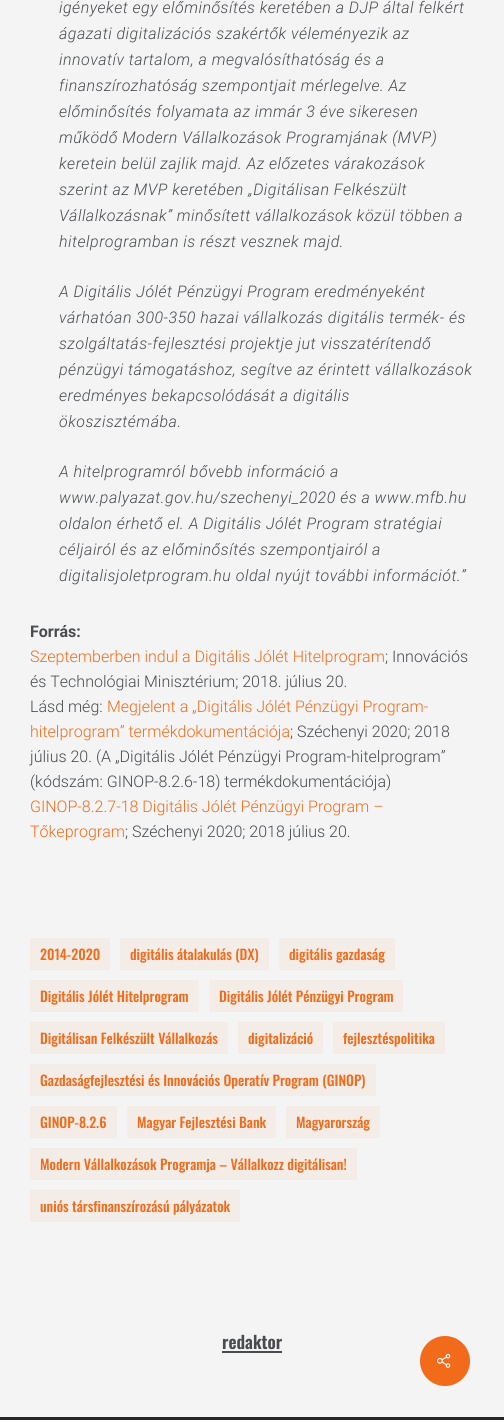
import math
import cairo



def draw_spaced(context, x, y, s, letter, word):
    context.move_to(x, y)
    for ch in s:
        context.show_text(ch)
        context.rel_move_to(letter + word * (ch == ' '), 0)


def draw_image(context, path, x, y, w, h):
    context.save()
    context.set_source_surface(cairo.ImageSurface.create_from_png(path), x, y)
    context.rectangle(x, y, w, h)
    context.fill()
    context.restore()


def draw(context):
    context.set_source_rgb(244 / 255, 244 / 255, 244 / 255)
    context.paint()
    context.set_source_rgba(242 / 255, 107 / 255, 26 / 255, 0.06)
    context.rectangle(30, 938, 80, 32)
    context.fill()
    context.rectangle(120, 938, 149, 32)
    context.fill()
    context.rectangle(279, 938, 116, 32)
    context.fill()
    context.rectangle(30, 980, 169, 32)
    context.fill()
    context.rectangle(209, 980, 194, 32)
    context.fill()
    context.rectangle(30, 1022, 198, 32)
    context.fill()
    context.rectangle(238, 1022, 85, 32)
    context.fill()
    context.rectangle(333, 1022, 112, 32)
    context.fill()
    context.rectangle(30, 1064, 346, 32)
    context.fill()
    context.rectangle(30, 1106, 87, 32)
    context.fill()
    context.rectangle(127, 1106, 149, 32)
    context.fill()
    context.rectangle(286, 1106, 94, 32)
    context.fill()
    context.rectangle(30, 1148, 327, 32)
    context.fill()
    context.rectangle(30, 1190, 210, 32)
    context.fill()
    context.set_source_rgb(73 / 255, 75 / 255, 79 / 255)
    context.rectangle(222, 1351, 60, 2)
    context.fill()
    context.set_source_rgb(38 / 255, 38 / 255, 38 / 255)
    context.rectangle(0, 1417, 504, 3)
    context.fill()
    context.set_source_rgb(242 / 255, 107 / 255, 26 / 255)
    context.arc(445, 1361, 25, 0, 2 * math.pi)
    context.fill()
    draw_image(context, "images/1.png", 437, 1353, 14, 15)
    context.select_font_face("Roboto Light", cairo.FontSlant.ITALIC)
    context.set_font_size(16)
    context.set_source_rgb(73 / 255, 75 / 255, 79 / 255)
    draw_spaced(context, 59, 13, "igényeket egy előminősítés keretében a DJP által felkért", 0.5, 0)
    draw_spaced(context, 59, 39, "ágazati digitalizációs szakértők véleményezik az", 0.5, 0)
    draw_spaced(context, 59, 65, "innovatív tartalom, a megvalósíthatóság és a", 0.5, 0)
    draw_spaced(context, 59, 91, "finanszírozhatóság szempontjait mérlegelve. Az", 0.5, 0)
    draw_spaced(context, 59, 117, "előminősítés folyamata az immár 3 éve sikeresen", 0.5, 0)
    draw_spaced(context, 59, 143, "működő Modern Vállalkozások Programjának (MVP)", 0.5, 0)
    draw_spaced(context, 59, 169, "keretein belül zajlik majd. Az előzetes várakozások", 0.5, 0)
    draw_spaced(context, 59, 195, "szerint az MVP keretében „Digitálisan Felkészült", 0.5, 0)
    draw_spaced(context, 59, 221, "Vállalkozásnak” minősített vállalkozások közül többen a", 0.5, 0)
    draw_spaced(context, 59, 247, "hitelprogramban is részt vesznek majd.", 0.5, 0)
    draw_spaced(context, 59, 297, "A Digitális Jólét Pénzügyi Program eredményeként", 0.5, 0)
    draw_spaced(context, 59, 323, "várhatóan 300-350 hazai vállalkozás digitális termék- és", 0.5, 0)
    draw_spaced(context, 59, 349, "szolgáltatás-fejlesztési projektje jut visszatérítendő", 0.5, 0)
    draw_spaced(context, 59, 375, "pénzügyi támogatáshoz, segítve az érintett vállalkozások", 0.5, 0)
    draw_spaced(context, 59, 401, "eredményes bekapcsolódását a digitális", 0.5, 0)
    draw_spaced(context, 59, 427, "ökoszisztémába.", 0.5, 0)
    draw_spaced(context, 59, 477, "A hitelprogramról bővebb információ a", 0.5, 0)
    draw_spaced(context, 59, 503, "www.palyazat.gov.hu/szechenyi_2020 és a www.mfb.hu", 0.5, 0)
    draw_spaced(context, 59, 529, "oldalon érhető el. A Digitális Jólét Program stratégiai", 0.5, 0)
    draw_spaced(context, 59, 555, "céljairól és az előminősítés szempontjairól a", 0.5, 0)
    draw_spaced(context, 59, 581, "digitalisjoletprogram.hu oldal nyújt további információt.”", 0.5, 0)
    context.select_font_face("Roboto", cairo.FontSlant.NORMAL, cairo.FontWeight.BOLD)
    context.move_to(30, 637)
    context.show_text("Forrás:")
    context.select_font_face("Roboto Light")
    context.set_source_rgb(242 / 255, 107 / 255, 26 / 255)
    context.move_to(30, 662)
    context.show_text("Szeptemberben indul a Digitális Jólét Hitelprogram")
    context.set_source_rgb(73 / 255, 75 / 255, 79 / 255)
    context.move_to(385, 662)
    context.show_text("; Innovációs")
    context.move_to(30, 687)
    context.show_text("és Technológiai Minisztérium; 2018. július 20.")
    context.move_to(30, 712)
    context.show_text("Lásd még:")
    context.set_source_rgb(242 / 255, 107 / 255, 26 / 255)
    context.move_to(107, 712)
    context.show_text("Megjelent a „Digitális Jólét Pénzügyi Program-")
    context.move_to(30, 737)
    context.show_text("hitelprogram” termékdokumentációja")
    context.set_source_rgb(73 / 255, 75 / 255, 79 / 255)
    context.move_to(290, 737)
    context.show_text("; Széchenyi 2020; 2018")
    context.move_to(30, 762)
    context.show_text("július 20. (A „Digitális Jólét Pénzügyi Program-hitelprogram”")
    context.move_to(30, 787)
    context.show_text("(kódszám: GINOP-8.2.6-18) termékdokumentációja)")
    context.set_source_rgb(242 / 255, 107 / 255, 26 / 255)
    context.move_to(30, 812)
    context.show_text("GINOP-8.2.7-18 Digitális Jólét Pénzügyi Program –")
    context.move_to(30, 837)
    context.show_text("Tőkeprogram")
    context.set_source_rgb(73 / 255, 75 / 255, 79 / 255)
    context.move_to(125, 837)
    context.show_text("; Széchenyi 2020; 2018 július 20.")
    context.select_font_face("Oswald Medium")
    context.set_font_size(14)
    context.set_source_rgb(242 / 255, 107 / 255, 26 / 255)
    context.move_to(40, 960)
    context.show_text("2014-2020")
    context.move_to(130, 960)
    context.show_text("digitális átalakulás (DX)")
    context.move_to(289, 960)
    context.show_text("digitális gazdaság")
    context.move_to(40, 1002)
    context.show_text("Digitális Jólét Hitelprogram")
    context.move_to(219, 1002)
    context.show_text("Digitális Jólét Pénzügyi Program")
    context.move_to(40, 1044)
    context.show_text("Digitálisan Felkészült Vállalkozás")
    context.move_to(248, 1044)
    context.show_text("digitalizáció")
    context.move_to(343, 1044)
    context.show_text("fejlesztéspolitika")
    context.move_to(40, 1086)
    context.show_text("Gazdaságfejlesztési és Innovációs Operatív Program (GINOP)")
    context.move_to(40, 1128)
    context.show_text("GINOP-8.2.6")
    context.move_to(137, 1128)
    context.show_text("Magyar Fejlesztési Bank")
    context.move_to(296, 1128)
    context.show_text("Magyarország")
    context.move_to(40, 1170)
    context.show_text("Modern Vállalkozások Programja – Vállalkozz digitálisan!")
    context.move_to(40, 1212)
    context.show_text("uniós társfinanszírozású pályázatok")
    context.select_font_face("Oswald SemiBold")
    context.set_font_size(17.5)
    context.set_source_rgb(73 / 255, 75 / 255, 79 / 255)
    context.move_to(222, 1349)
    context.show_text("redaktor")


surface = cairo.ImageSurface(cairo.Format.RGB24, 504, 1420)
context = cairo.Context(surface)
options = cairo.FontOptions()
options.set_hint_metrics(cairo.HintMetrics.OFF)
options.set_hint_style(cairo.HintStyle.NONE)
context.set_font_options(options)
context.set_miter_limit(4)
draw(context)
surface.write_to_png("out.png")
